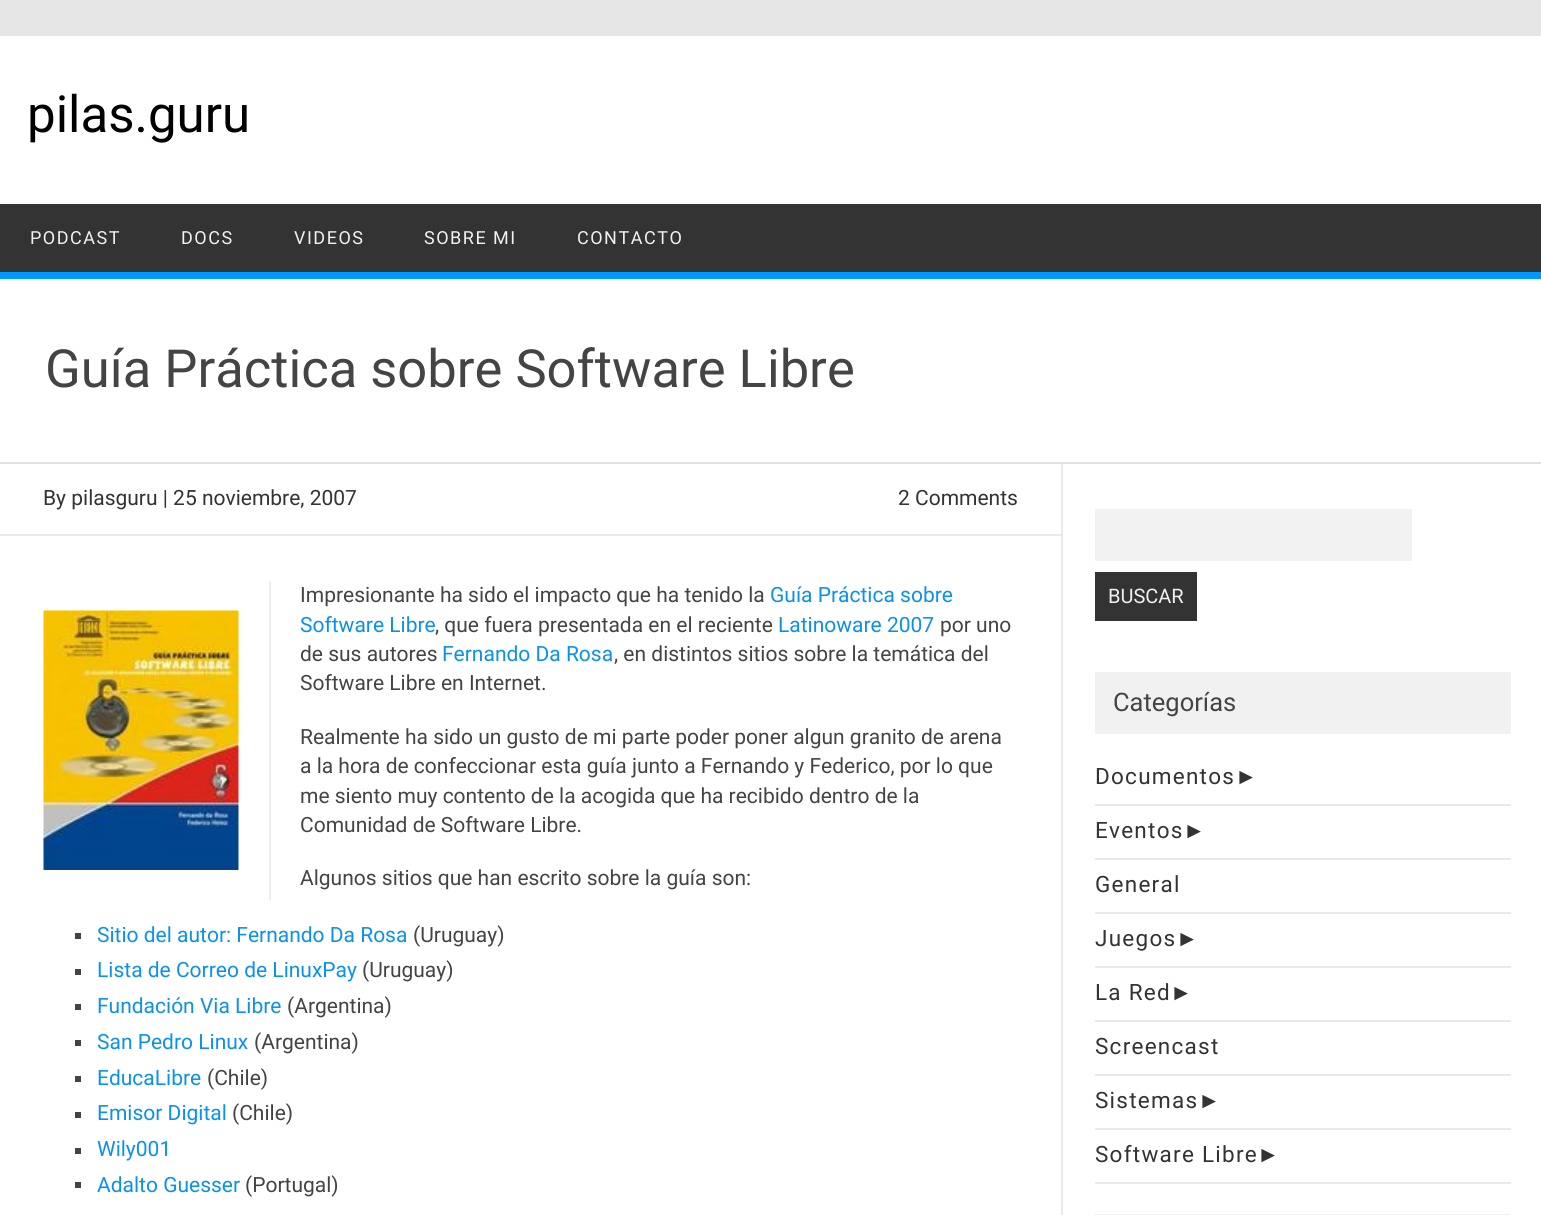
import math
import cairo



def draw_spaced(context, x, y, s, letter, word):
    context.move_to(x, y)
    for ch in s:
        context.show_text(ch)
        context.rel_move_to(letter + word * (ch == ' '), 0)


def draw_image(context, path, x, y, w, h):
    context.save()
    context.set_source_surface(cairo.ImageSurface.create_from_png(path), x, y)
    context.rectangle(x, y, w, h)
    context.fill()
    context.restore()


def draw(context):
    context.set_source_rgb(230 / 255, 230 / 255, 230 / 255)
    context.paint()
    context.set_source_rgb(1, 1, 1)
    context.rectangle(0, 36, 1541, 1179)
    context.fill()
    context.set_source_rgb(51 / 255, 51 / 255, 51 / 255)
    context.rectangle(0, 204, 1541, 68)
    context.fill()
    context.set_source_rgb(0, 153 / 255, 1)
    context.rectangle(0, 272, 1541, 7)
    context.fill()
    context.set_source_rgb(225 / 255, 225 / 255, 225 / 255)
    context.rectangle(0, 462, 1541, 2)
    context.fill()
    context.set_source_rgb(233 / 255, 233 / 255, 233 / 255)
    context.rectangle(1061, 464, 2, 751)
    context.fill()
    context.rectangle(0, 534, 1061, 2)
    context.fill()
    context.set_source_rgb(237 / 255, 237 / 255, 237 / 255)
    context.rectangle(269, 581, 2, 319)
    context.fill()
    draw_image(context, "images/1.png", 43, 610, 196, 260)
    context.set_source_rgb(68 / 255, 68 / 255, 68 / 255)
    context.rectangle(75, 933, 6, 6)
    context.fill()
    context.rectangle(75, 969, 6, 6)
    context.fill()
    context.rectangle(75, 1004, 6, 6)
    context.fill()
    context.rectangle(75, 1040, 6, 6)
    context.fill()
    context.rectangle(75, 1076, 6, 6)
    context.fill()
    context.rectangle(75, 1112, 6, 6)
    context.fill()
    context.rectangle(75, 1148, 6, 6)
    context.fill()
    context.rectangle(75, 1182, 6, 6)
    context.fill()
    context.set_source_rgb(242 / 255, 242 / 255, 242 / 255)
    context.rectangle(1095, 509, 317, 52)
    context.fill()
    context.set_source_rgb(51 / 255, 51 / 255, 51 / 255)
    context.rectangle(1095, 572, 102, 49)
    context.fill()
    context.set_source_rgb(241 / 255, 241 / 255, 241 / 255)
    context.rectangle(1095, 672, 416, 62)
    context.fill()
    context.set_source_rgb(233 / 255, 233 / 255, 233 / 255)
    context.rectangle(1095, 804, 416, 2)
    context.fill()
    context.rectangle(1095, 858, 416, 2)
    context.fill()
    context.rectangle(1095, 912, 416, 2)
    context.fill()
    context.rectangle(1095, 966, 416, 2)
    context.fill()
    context.rectangle(1095, 1020, 416, 2)
    context.fill()
    context.rectangle(1095, 1074, 416, 2)
    context.fill()
    context.rectangle(1095, 1128, 416, 2)
    context.fill()
    context.rectangle(1095, 1182, 416, 2)
    context.fill()
    context.set_source_rgb(241 / 255, 241 / 255, 241 / 255)
    context.rectangle(1095, 1214, 416, 1)
    context.fill()
    context.select_font_face("Roboto")
    context.set_font_size(51)
    context.set_source_rgb(0, 0, 0)
    context.move_to(27, 132)
    context.show_text("pilas.guru")
    context.set_font_size(18)
    context.set_source_rgb(241 / 255, 241 / 255, 241 / 255)
    draw_spaced(context, 30, 244, "PODCAST", 1.5, 0)
    draw_spaced(context, 181, 244, "DOCS", 1.5, 0)
    draw_spaced(context, 294, 244, "VIDEOS", 1.5, 0)
    draw_spaced(context, 424, 244, "SOBRE MI", 1.5, 0)
    draw_spaced(context, 577, 244, "CONTACTO", 1.5, 0)
    context.set_font_size(52.5)
    context.set_source_rgb(68 / 255, 68 / 255, 68 / 255)
    context.move_to(45, 387)
    context.show_text("Guía Práctica sobre Software Libre")
    context.set_font_size(21)
    context.set_source_rgb(51 / 255, 51 / 255, 51 / 255)
    context.move_to(43, 505)
    context.show_text("By pilasguru | 25 noviembre, 2007")
    context.move_to(898, 505)
    context.show_text("2 Comments")
    context.set_source_rgb(68 / 255, 68 / 255, 68 / 255)
    context.move_to(300, 602)
    context.show_text("Impresionante ha sido el impacto que ha tenido la")
    context.set_source_rgb(11 / 255, 145 / 255, 234 / 255)
    context.move_to(770, 602)
    context.show_text("Guía Práctica sobre")
    context.move_to(300, 632)
    context.show_text("Software Libre")
    context.set_source_rgb(68 / 255, 68 / 255, 68 / 255)
    context.move_to(435, 632)
    context.show_text(", que fuera presentada en el reciente")
    context.set_source_rgb(11 / 255, 145 / 255, 234 / 255)
    context.move_to(778, 632)
    context.show_text("Latinoware 2007")
    context.set_source_rgb(68 / 255, 68 / 255, 68 / 255)
    context.move_to(940, 632)
    context.show_text("por uno")
    context.move_to(300, 661)
    context.show_text("de sus autores")
    context.set_source_rgb(11 / 255, 145 / 255, 234 / 255)
    context.move_to(442, 661)
    context.show_text("Fernando Da Rosa")
    context.set_source_rgb(68 / 255, 68 / 255, 68 / 255)
    context.move_to(614, 661)
    context.show_text(", en distintos sitios sobre la temática del")
    context.move_to(300, 690)
    context.show_text("Software Libre en Internet.")
    context.move_to(300, 744)
    context.show_text("Realmente ha sido un gusto de mi parte poder poner algun granito de arena")
    context.move_to(300, 773)
    context.show_text("a la hora de confeccionar esta guía junto a Fernando y Federico, por lo que")
    context.move_to(300, 803)
    context.show_text("me siento muy contento de la acogida que ha recibido dentro de la")
    context.move_to(300, 832)
    context.show_text("Comunidad de Software Libre.")
    context.move_to(300, 885)
    context.show_text("Algunos sitios que han escrito sobre la guía son:")
    context.set_source_rgb(11 / 255, 145 / 255, 234 / 255)
    context.move_to(97, 942)
    context.show_text("Sitio del autor: Fernando Da Rosa")
    context.set_source_rgb(68 / 255, 68 / 255, 68 / 255)
    context.move_to(413, 942)
    context.show_text("(Uruguay)")
    context.set_source_rgb(11 / 255, 145 / 255, 234 / 255)
    context.move_to(97, 977)
    context.show_text("Lista de Correo de LinuxPay")
    context.set_source_rgb(68 / 255, 68 / 255, 68 / 255)
    context.move_to(362, 977)
    context.show_text("(Uruguay)")
    context.set_source_rgb(11 / 255, 145 / 255, 234 / 255)
    context.move_to(97, 1013)
    context.show_text("Fundación Via Libre")
    context.set_source_rgb(68 / 255, 68 / 255, 68 / 255)
    context.move_to(287, 1013)
    context.show_text("(Argentina)")
    context.set_source_rgb(11 / 255, 145 / 255, 234 / 255)
    context.move_to(97, 1049)
    context.show_text("San Pedro Linux")
    context.set_source_rgb(68 / 255, 68 / 255, 68 / 255)
    context.move_to(254, 1049)
    context.show_text("(Argentina)")
    context.set_source_rgb(11 / 255, 145 / 255, 234 / 255)
    context.move_to(97, 1085)
    context.show_text("EducaLibre")
    context.set_source_rgb(68 / 255, 68 / 255, 68 / 255)
    context.move_to(207, 1085)
    context.show_text("(Chile)")
    context.set_source_rgb(11 / 255, 145 / 255, 234 / 255)
    context.move_to(97, 1120)
    context.show_text("Emisor Digital")
    context.set_source_rgb(68 / 255, 68 / 255, 68 / 255)
    context.move_to(232, 1120)
    context.show_text("(Chile)")
    context.set_source_rgb(11 / 255, 145 / 255, 234 / 255)
    context.move_to(97, 1156)
    context.show_text("Wily001")
    context.move_to(97, 1192)
    context.show_text("Adalto Guesser")
    context.set_source_rgb(68 / 255, 68 / 255, 68 / 255)
    context.move_to(245, 1192)
    context.show_text("(Portugal)")
    context.set_font_size(20)
    context.set_source_rgb(241 / 255, 241 / 255, 241 / 255)
    context.move_to(1108, 603)
    context.show_text("BUSCAR")
    context.set_font_size(25.5)
    context.set_source_rgb(68 / 255, 68 / 255, 68 / 255)
    context.move_to(1113, 711)
    context.show_text("Categorías")
    context.set_font_size(22.5)
    context.set_source_rgb(51 / 255, 51 / 255, 51 / 255)
    draw_spaced(context, 1095, 784, "Documentos", 1.25, 0)
    context.select_font_face("Liberation Sans")
    draw_spaced(context, 1235, 784, "►", 1.25, 0)
    context.select_font_face("Roboto")
    draw_spaced(context, 1095, 838, "Eventos", 1.25, 0)
    context.select_font_face("Liberation Sans")
    draw_spaced(context, 1183, 838, "►", 1.25, 0)
    context.select_font_face("Roboto")
    draw_spaced(context, 1095, 892, "General", 1.25, 0)
    draw_spaced(context, 1095, 946, "Juegos", 1.25, 0)
    context.select_font_face("Liberation Sans")
    draw_spaced(context, 1176, 946, "►", 1.25, 0)
    context.select_font_face("Roboto")
    draw_spaced(context, 1095, 1000, "La Red", 1.25, 0)
    context.select_font_face("Liberation Sans")
    draw_spaced(context, 1170, 1000, "►", 1.25, 0)
    context.select_font_face("Roboto")
    draw_spaced(context, 1095, 1054, "Screencast", 1.25, 0)
    draw_spaced(context, 1095, 1108, "Sistemas", 1.25, 0)
    context.select_font_face("Liberation Sans")
    draw_spaced(context, 1198, 1108, "►", 1.25, 0)
    context.select_font_face("Roboto")
    draw_spaced(context, 1095, 1162, "Software Libre", 1.25, 0)
    context.select_font_face("Liberation Sans")
    draw_spaced(context, 1257, 1162, "►", 1.25, 0)


surface = cairo.ImageSurface(cairo.Format.RGB24, 1541, 1215)
context = cairo.Context(surface)
options = cairo.FontOptions()
options.set_hint_metrics(cairo.HintMetrics.OFF)
options.set_hint_style(cairo.HintStyle.NONE)
context.set_font_options(options)
context.set_miter_limit(4)
draw(context)
surface.write_to_png("out.png")
